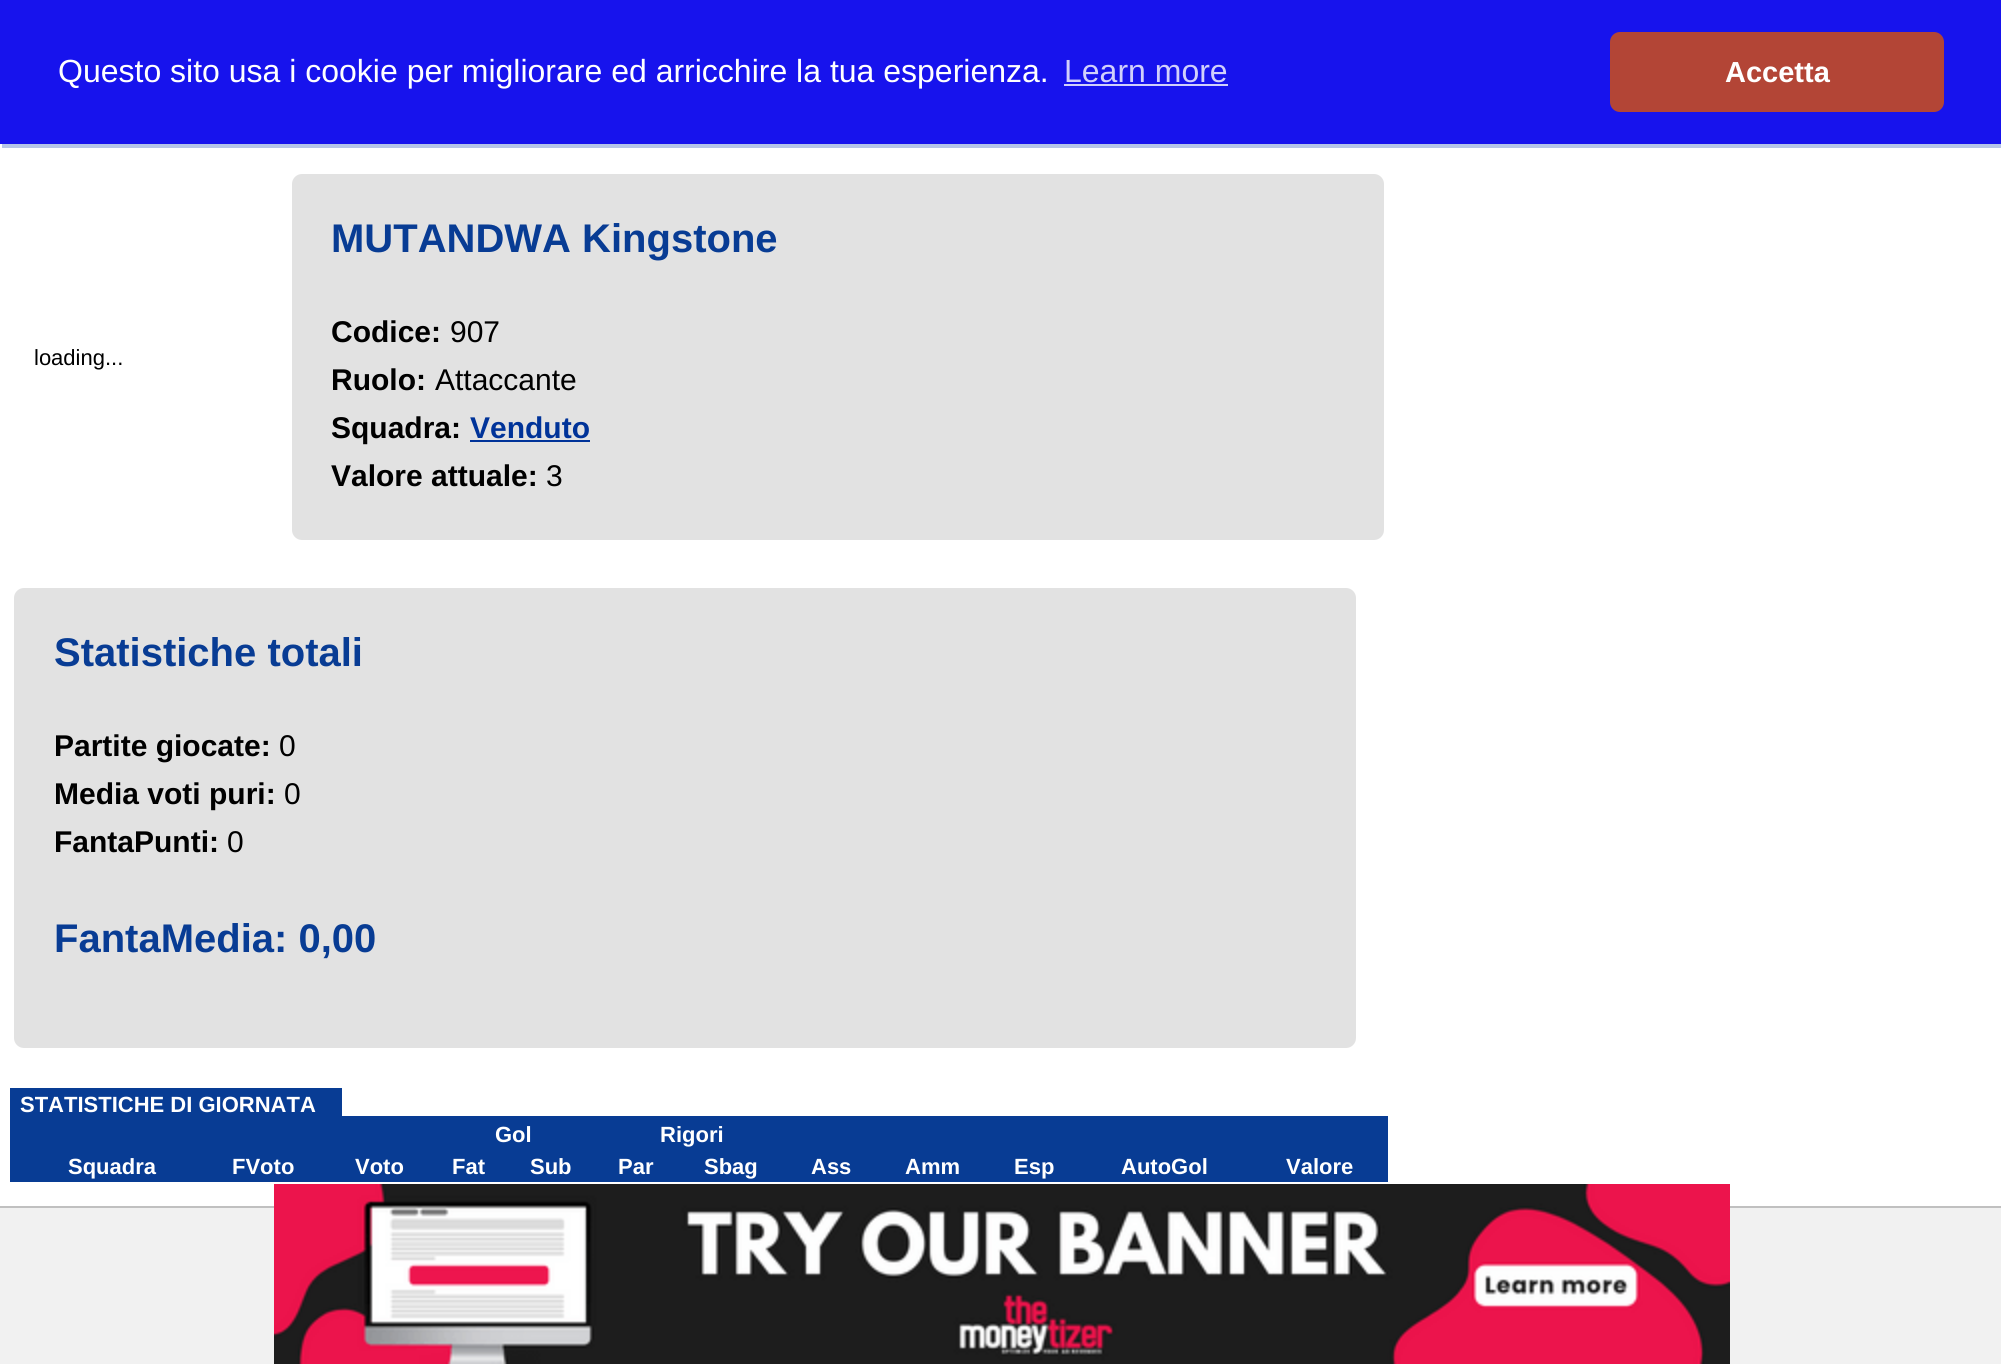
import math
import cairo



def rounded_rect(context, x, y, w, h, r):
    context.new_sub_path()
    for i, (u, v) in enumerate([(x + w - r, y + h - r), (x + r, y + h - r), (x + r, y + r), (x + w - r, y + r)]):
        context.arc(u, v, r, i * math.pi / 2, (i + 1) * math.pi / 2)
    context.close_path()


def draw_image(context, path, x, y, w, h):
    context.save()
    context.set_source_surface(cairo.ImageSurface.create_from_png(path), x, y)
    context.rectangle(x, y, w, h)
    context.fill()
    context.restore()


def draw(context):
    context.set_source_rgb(1, 1, 1)
    context.paint()
    context.set_source_rgb(23 / 255, 19 / 255, 237 / 255)
    context.rectangle(0, 0, 2001, 144)
    context.fill()
    context.set_source_rgb(209 / 255, 208 / 255, 251 / 255)
    context.rectangle(1064, 84, 164, 2)
    context.fill()
    context.set_source_rgb(179 / 255, 69 / 255, 54 / 255)
    rounded_rect(context, 1610, 32, 334, 80, 10)
    context.fill()
    context.set_source_rgb(181 / 255, 197 / 255, 232 / 255)
    context.rectangle(2, 144, 1999, 4)
    context.fill()
    context.set_source_rgb(226 / 255, 226 / 255, 226 / 255)
    rounded_rect(context, 292, 174, 1092, 366, 10)
    context.fill()
    context.set_source_rgb(0, 51 / 255, 153 / 255)
    context.rectangle(470, 440, 120, 2)
    context.fill()
    context.set_source_rgb(226 / 255, 226 / 255, 226 / 255)
    rounded_rect(context, 14, 588, 1342, 460, 10)
    context.fill()
    context.set_source_rgb(8 / 255, 60 / 255, 148 / 255)
    context.rectangle(10, 1116, 1378, 2)
    context.fill()
    context.rectangle(10, 1088, 332, 28)
    context.fill()
    context.rectangle(10, 1118, 1378, 32)
    context.fill()
    context.rectangle(10, 1150, 1378, 32)
    context.fill()
    context.set_source_rgb(241 / 255, 241 / 255, 241 / 255)
    context.rectangle(0, 1208, 2001, 156)
    context.fill()
    context.set_source_rgb(192 / 255, 192 / 255, 192 / 255)
    context.rectangle(0, 1206, 2001, 2)
    context.fill()
    draw_image(context, "images/1.png", 274, 1184, 1456, 180)
    context.select_font_face("Liberation Sans")
    context.set_font_size(32)
    context.set_source_rgb(1, 1, 1)
    context.move_to(58, 82)
    context.show_text("Questo sito usa i cookie per migliorare ed arricchire la tua esperienza.")
    context.set_source_rgb(209 / 255, 208 / 255, 251 / 255)
    context.move_to(1064, 82)
    context.show_text("Learn more")
    context.select_font_face("Liberation Sans", cairo.FontSlant.NORMAL, cairo.FontWeight.BOLD)
    context.set_font_size(29)
    context.set_source_rgb(1, 1, 1)
    context.move_to(1725, 82)
    context.show_text("Accetta")
    context.select_font_face("Liberation Sans")
    context.set_font_size(22)
    context.set_source_rgb(0, 0, 0)
    context.move_to(34, 365)
    context.show_text("loading...")
    context.select_font_face("Liberation Sans", cairo.FontSlant.NORMAL, cairo.FontWeight.BOLD)
    context.set_font_size(40)
    context.set_source_rgb(8 / 255, 60 / 255, 148 / 255)
    context.move_to(331, 252)
    context.show_text("MUTANDWA Kingstone")
    context.set_font_size(30)
    context.set_source_rgb(0, 0, 0)
    context.move_to(331, 342)
    context.show_text("Codice:")
    context.select_font_face("Liberation Sans")
    context.move_to(450, 342)
    context.show_text("907")
    context.select_font_face("Liberation Sans", cairo.FontSlant.NORMAL, cairo.FontWeight.BOLD)
    context.move_to(331, 390)
    context.show_text("Ruolo:")
    context.select_font_face("Liberation Sans")
    context.move_to(435, 390)
    context.show_text("Attaccante")
    context.select_font_face("Liberation Sans", cairo.FontSlant.NORMAL, cairo.FontWeight.BOLD)
    context.move_to(331, 438)
    context.show_text("Squadra:")
    context.set_source_rgb(0, 51 / 255, 153 / 255)
    context.move_to(470, 438)
    context.show_text("Venduto")
    context.set_source_rgb(0, 0, 0)
    context.move_to(331, 486)
    context.show_text("Valore attuale:")
    context.select_font_face("Liberation Sans")
    context.move_to(546, 486)
    context.show_text("3")
    context.select_font_face("Liberation Sans", cairo.FontSlant.NORMAL, cairo.FontWeight.BOLD)
    context.set_font_size(40)
    context.set_source_rgb(8 / 255, 60 / 255, 148 / 255)
    context.move_to(54, 666)
    context.show_text("Statistiche totali")
    context.set_font_size(30)
    context.set_source_rgb(0, 0, 0)
    context.move_to(54, 756)
    context.show_text("Partite giocate:")
    context.select_font_face("Liberation Sans")
    context.move_to(279, 756)
    context.show_text("0")
    context.select_font_face("Liberation Sans", cairo.FontSlant.NORMAL, cairo.FontWeight.BOLD)
    context.move_to(54, 804)
    context.show_text("Media voti puri:")
    context.select_font_face("Liberation Sans")
    context.move_to(284, 804)
    context.show_text("0")
    context.select_font_face("Liberation Sans", cairo.FontSlant.NORMAL, cairo.FontWeight.BOLD)
    context.move_to(54, 852)
    context.show_text("FantaPunti:")
    context.select_font_face("Liberation Sans")
    context.move_to(227, 852)
    context.show_text("0")
    context.select_font_face("Liberation Sans", cairo.FontSlant.NORMAL, cairo.FontWeight.BOLD)
    context.set_font_size(40)
    context.set_source_rgb(8 / 255, 60 / 255, 148 / 255)
    context.move_to(54, 952)
    context.show_text("FantaMedia: 0,00")
    context.set_font_size(22)
    context.set_source_rgb(1, 1, 1)
    context.move_to(20, 1112)
    context.show_text("STATISTICHE DI GIORNATA")
    context.move_to(495, 1142)
    context.show_text("Gol")
    context.move_to(660, 1142)
    context.show_text("Rigori")
    context.move_to(68, 1174)
    context.show_text("Squadra")
    context.move_to(232, 1174)
    context.show_text("FVoto")
    context.move_to(355, 1174)
    context.show_text("Voto")
    context.move_to(452, 1174)
    context.show_text("Fat")
    context.move_to(530, 1174)
    context.show_text("Sub")
    context.move_to(618, 1174)
    context.show_text("Par")
    context.move_to(704, 1174)
    context.show_text("Sbag")
    context.move_to(811, 1174)
    context.show_text("Ass")
    context.move_to(905, 1174)
    context.show_text("Amm")
    context.move_to(1014, 1174)
    context.show_text("Esp")
    context.move_to(1121, 1174)
    context.show_text("AutoGol")
    context.move_to(1286, 1174)
    context.show_text("Valore")


surface = cairo.ImageSurface(cairo.Format.RGB24, 2001, 1364)
context = cairo.Context(surface)
options = cairo.FontOptions()
options.set_hint_metrics(cairo.HintMetrics.OFF)
options.set_hint_style(cairo.HintStyle.NONE)
context.set_font_options(options)
context.set_miter_limit(4)
draw(context)
surface.write_to_png("out.png")
